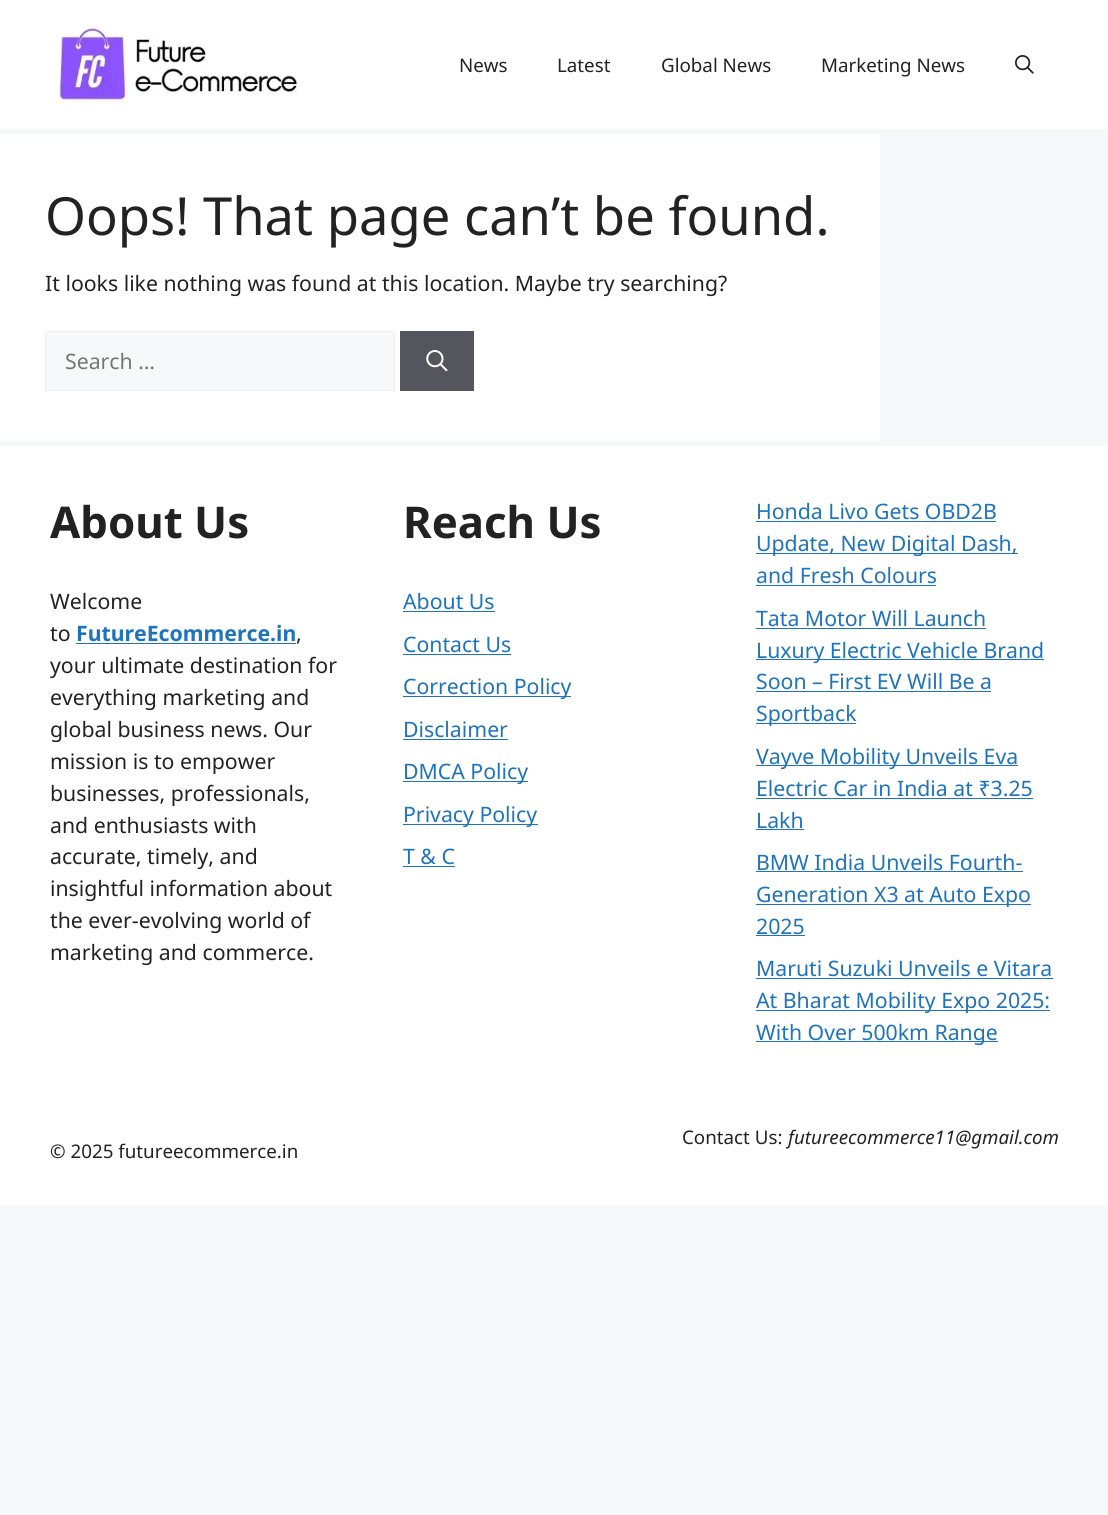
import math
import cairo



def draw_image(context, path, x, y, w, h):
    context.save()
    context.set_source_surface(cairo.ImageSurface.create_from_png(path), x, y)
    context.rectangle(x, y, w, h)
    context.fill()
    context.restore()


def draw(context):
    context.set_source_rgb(247 / 255, 248 / 255, 249 / 255)
    context.paint()
    context.set_source_rgb(1, 1, 1)
    context.rectangle(0, 0, 1108, 129)
    context.fill()
    draw_image(context, "images/1.png", 59, 25, 239, 78)
    draw_image(context, "images/2.png", 1015, 55, 19, 19)
    context.rectangle(0, 134, 880, 307)
    context.fill()
    context.set_source_rgb(247 / 255, 248 / 255, 249 / 255)
    context.rectangle(45.5, 331.5, 349, 59)
    context.fill_preserve()
    context.set_source_rgb(240 / 255, 240 / 255, 240 / 255)
    context.set_line_width(1)
    context.stroke()
    context.set_source_rgb(85 / 255, 85 / 255, 94 / 255)
    context.rectangle(400, 331, 74, 60)
    context.fill()
    draw_image(context, "images/3.png", 426, 350, 22, 21)
    context.set_source_rgb(1, 1, 1)
    context.rectangle(0, 446, 1108, 759)
    context.fill()
    context.set_source_rgb(30 / 255, 115 / 255, 190 / 255)
    context.rectangle(76, 643, 220, 1)
    context.fill()
    context.rectangle(403, 611, 92, 1)
    context.fill()
    context.rectangle(403, 654, 108, 1)
    context.fill()
    context.rectangle(403, 696, 168, 1)
    context.fill()
    context.rectangle(403, 739, 105, 1)
    context.fill()
    context.rectangle(403, 781, 125, 1)
    context.fill()
    context.rectangle(403, 824, 135, 1)
    context.fill()
    context.rectangle(403, 866, 52, 1)
    context.fill()
    context.rectangle(756, 521, 240, 1)
    context.fill()
    context.rectangle(756, 553, 262, 1)
    context.fill()
    context.rectangle(756, 585, 180, 1)
    context.fill()
    context.rectangle(756, 628, 230, 1)
    context.fill()
    context.rectangle(756, 659, 288, 1)
    context.fill()
    context.rectangle(756, 691, 235, 1)
    context.fill()
    context.rectangle(756, 723, 100, 1)
    context.fill()
    context.rectangle(756, 765, 262, 1)
    context.fill()
    context.rectangle(756, 798, 277, 1)
    context.fill()
    context.rectangle(756, 829, 48, 1)
    context.fill()
    context.rectangle(756, 871, 267, 1)
    context.fill()
    context.rectangle(756, 904, 275, 1)
    context.fill()
    context.rectangle(756, 935, 49, 1)
    context.fill()
    context.rectangle(756, 978, 297, 1)
    context.fill()
    context.rectangle(756, 1010, 294, 1)
    context.fill()
    context.rectangle(756, 1041, 242, 1)
    context.fill()
    context.select_font_face("Noto Sans")
    context.set_font_size(18.75)
    context.set_source_rgb(34 / 255, 34 / 255, 34 / 255)
    context.move_to(459, 72)
    context.show_text("News")
    context.move_to(557, 72)
    context.show_text("Latest")
    context.move_to(661, 72)
    context.show_text("Global News")
    context.move_to(821, 72)
    context.show_text("Marketing News")
    context.set_font_size(52.5)
    context.move_to(45, 235)
    context.show_text("Oops! That page can’t be found.")
    context.set_font_size(21.25)
    context.move_to(45, 291)
    context.show_text("It looks like nothing was found at this location. Maybe try searching?")
    context.set_source_rgb(117 / 255, 117 / 255, 117 / 255)
    context.move_to(65, 369)
    context.show_text("Search …")
    context.select_font_face("Noto Sans", cairo.FontSlant.NORMAL, cairo.FontWeight.BOLD)
    context.set_font_size(43.75)
    context.set_source_rgb(34 / 255, 34 / 255, 34 / 255)
    context.move_to(50, 538)
    context.show_text("About Us")
    context.select_font_face("Noto Sans")
    context.set_font_size(21.25)
    context.move_to(50, 609)
    context.show_text("Welcome")
    context.move_to(50, 641)
    context.show_text("to")
    context.select_font_face("Noto Sans", cairo.FontSlant.NORMAL, cairo.FontWeight.BOLD)
    context.set_source_rgb(30 / 255, 115 / 255, 190 / 255)
    context.move_to(76, 641)
    context.show_text("FutureEcommerce.in")
    context.select_font_face("Noto Sans")
    context.set_source_rgb(34 / 255, 34 / 255, 34 / 255)
    context.move_to(296, 641)
    context.show_text(",")
    context.move_to(50, 673)
    context.show_text("your ultimate destination for")
    context.move_to(50, 705)
    context.show_text("everything marketing and")
    context.move_to(50, 737)
    context.show_text("global business news. Our")
    context.move_to(50, 769)
    context.show_text("mission is to empower")
    context.move_to(50, 801)
    context.show_text("businesses, professionals,")
    context.move_to(50, 833)
    context.show_text("and enthusiasts with")
    context.move_to(50, 864)
    context.show_text("accurate, timely, and")
    context.move_to(50, 896)
    context.show_text("insightful information about")
    context.move_to(50, 928)
    context.show_text("the ever-evolving world of")
    context.move_to(50, 960)
    context.show_text("marketing and commerce.")
    context.select_font_face("Noto Sans", cairo.FontSlant.NORMAL, cairo.FontWeight.BOLD)
    context.set_font_size(43.75)
    context.move_to(403, 538)
    context.show_text("Reach Us")
    context.select_font_face("Noto Sans")
    context.set_font_size(21.25)
    context.set_source_rgb(30 / 255, 115 / 255, 190 / 255)
    context.move_to(403, 609)
    context.show_text("About Us")
    context.move_to(403, 652)
    context.show_text("Contact Us")
    context.move_to(403, 694)
    context.show_text("Correction Policy")
    context.move_to(403, 737)
    context.show_text("Disclaimer")
    context.move_to(403, 779)
    context.show_text("DMCA Policy")
    context.move_to(403, 822)
    context.show_text("Privacy Policy")
    context.move_to(403, 864)
    context.show_text("T & C")
    context.move_to(756, 519)
    context.show_text("Honda Livo Gets OBD2B")
    context.move_to(756, 551)
    context.show_text("Update, New Digital Dash,")
    context.move_to(756, 583)
    context.show_text("and Fresh Colours")
    context.move_to(756, 626)
    context.show_text("Tata Motor Will Launch")
    context.move_to(756, 658)
    context.show_text("Luxury Electric Vehicle Brand")
    context.move_to(756, 689)
    context.show_text("Soon – First EV Will Be a")
    context.move_to(756, 721)
    context.show_text("Sportback")
    context.move_to(756, 764)
    context.show_text("Vayve Mobility Unveils Eva")
    context.move_to(756, 796)
    context.show_text("Electric Car in India at ₹3.25")
    context.move_to(756, 828)
    context.show_text("Lakh")
    context.move_to(756, 870)
    context.show_text("BMW India Unveils Fourth-")
    context.move_to(756, 902)
    context.show_text("Generation X3 at Auto Expo")
    context.move_to(756, 934)
    context.show_text("2025")
    context.move_to(756, 976)
    context.show_text("Maruti Suzuki Unveils e Vitara")
    context.move_to(756, 1008)
    context.show_text("At Bharat Mobility Expo 2025:")
    context.move_to(756, 1040)
    context.show_text("With Over 500km Range")
    context.set_font_size(18.75)
    context.set_source_rgb(34 / 255, 34 / 255, 34 / 255)
    context.move_to(682, 1144)
    context.show_text("Contact Us:")
    context.select_font_face("Noto Sans", cairo.FontSlant.ITALIC)
    context.move_to(788, 1144)
    context.show_text("futureecommerce11@gmail.com")
    context.select_font_face("Noto Sans")
    context.move_to(50, 1158)
    context.show_text("© 2025 futureecommerce.in")


surface = cairo.ImageSurface(cairo.Format.RGB24, 1108, 1515)
context = cairo.Context(surface)
options = cairo.FontOptions()
options.set_hint_metrics(cairo.HintMetrics.OFF)
options.set_hint_style(cairo.HintStyle.NONE)
context.set_font_options(options)
context.set_miter_limit(4)
draw(context)
surface.write_to_png("out.png")
